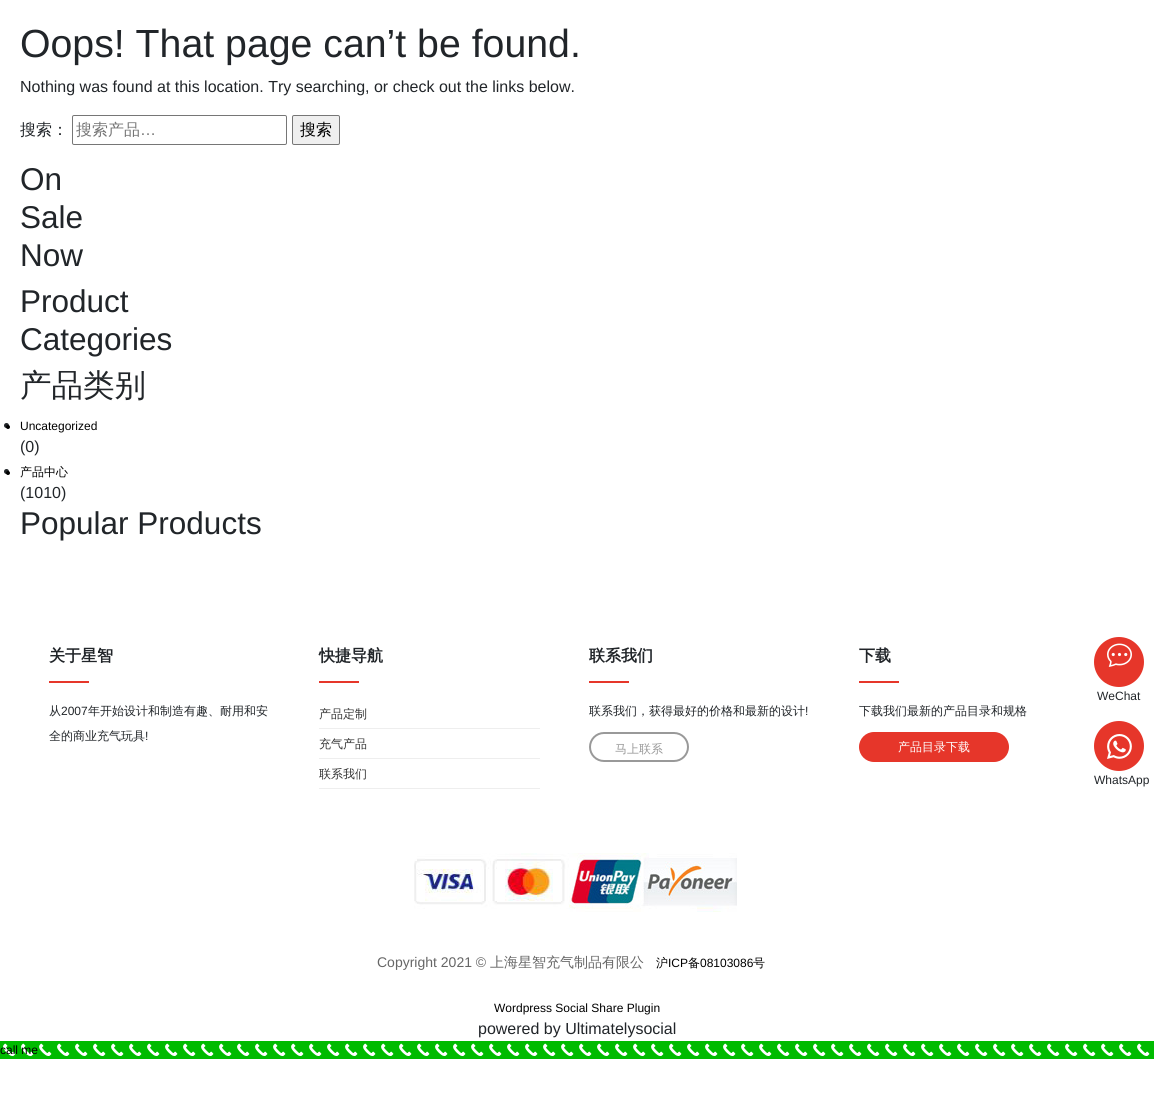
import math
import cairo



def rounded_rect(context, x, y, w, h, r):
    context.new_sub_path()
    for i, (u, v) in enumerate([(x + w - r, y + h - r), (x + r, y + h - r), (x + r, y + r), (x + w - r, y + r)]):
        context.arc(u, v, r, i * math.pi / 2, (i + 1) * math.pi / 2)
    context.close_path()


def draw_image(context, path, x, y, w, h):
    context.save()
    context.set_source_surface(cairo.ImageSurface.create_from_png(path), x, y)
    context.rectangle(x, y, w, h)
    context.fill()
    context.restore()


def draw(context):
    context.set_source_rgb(1, 1, 1)
    context.paint()
    rounded_rect(context, 72.5, 115.5, 214, 29, 1.5)
    context.set_source_rgb(118 / 255, 118 / 255, 118 / 255)
    context.set_line_width(1)
    context.stroke()
    context.set_source_rgb(239 / 255, 239 / 255, 239 / 255)
    rounded_rect(context, 292.5, 115.5, 47, 29, 1.5)
    context.fill_preserve()
    context.set_source_rgb(118 / 255, 118 / 255, 118 / 255)
    context.stroke()
    context.set_source_rgb(33 / 255, 37 / 255, 41 / 255)
    context.arc(6.5, 425.5, 2.5, 0, 2 * math.pi)
    context.fill()
    context.set_source_rgb(0, 0, 0)
    context.arc(8, 427, 2, 0, 2 * math.pi)
    context.fill()
    context.set_source_rgb(33 / 255, 37 / 255, 41 / 255)
    context.arc(6.5, 471.5, 2.5, 0, 2 * math.pi)
    context.fill()
    context.set_source_rgb(0, 0, 0)
    context.arc(8, 473, 2, 0, 2 * math.pi)
    context.fill()
    context.set_source_rgb(230 / 255, 54 / 255, 42 / 255)
    context.rectangle(49, 681, 40, 2)
    context.fill()
    context.rectangle(319, 681, 40, 2)
    context.fill()
    context.set_source_rgb(238 / 255, 238 / 255, 238 / 255)
    context.rectangle(319, 728, 221, 1)
    context.fill()
    context.rectangle(319, 758, 221, 1)
    context.fill()
    context.rectangle(319, 788, 221, 1)
    context.fill()
    context.set_source_rgb(230 / 255, 54 / 255, 42 / 255)
    context.rectangle(589, 681, 40, 2)
    context.fill()
    rounded_rect(context, 590, 733, 98, 28, 14)
    context.set_source_rgb(153 / 255, 153 / 255, 153 / 255)
    context.set_line_width(2)
    context.stroke()
    context.set_source_rgb(230 / 255, 54 / 255, 42 / 255)
    context.rectangle(859, 681, 40, 2)
    context.fill()
    rounded_rect(context, 859, 732, 150, 30, 15)
    context.fill()
    draw_image(context, "images/1.png", 414, 853, 323, 59)
    context.arc(1119, 662, 25, 0, 2 * math.pi)
    context.fill()
    draw_image(context, "images/2.png", 1107, 643, 25, 24)
    context.arc(1119, 746, 25, 0, 2 * math.pi)
    context.fill()
    draw_image(context, "images/3.png", 1107, 734, 25, 25)
    context.set_source_rgb(0, 187 / 255, 0)
    context.rectangle(0, 1041, 1154, 18)
    context.fill()
    draw_image(context, "images/4.png", 3, 1043, 1147, 13)
    context.select_font_face("Liberation Sans")
    context.set_font_size(39.25)
    context.set_source_rgb(33 / 255, 37 / 255, 41 / 255)
    context.move_to(20, 57)
    context.show_text("Oops! That page can’t be found.")
    context.set_font_size(16)
    context.move_to(20, 92)
    context.show_text("Nothing was found at this location. Try searching, or check out the links below.")
    context.select_font_face("WenQuanYi Zen Hei Medium")
    context.move_to(20, 135)
    context.show_text("搜索：")
    context.set_source_rgb(117 / 255, 117 / 255, 117 / 255)
    context.move_to(76, 135)
    context.show_text("搜索产品")
    context.select_font_face("Liberation Sans")
    context.move_to(140, 135)
    context.show_text("…")
    context.select_font_face("WenQuanYi Zen Hei Medium")
    context.set_source_rgb(0, 0, 0)
    context.move_to(300, 135)
    context.show_text("搜索")
    context.select_font_face("Liberation Sans")
    context.set_font_size(31.5)
    context.set_source_rgb(33 / 255, 37 / 255, 41 / 255)
    context.move_to(20, 190)
    context.show_text("On")
    context.move_to(20, 228)
    context.show_text("Sale")
    context.move_to(20, 266)
    context.show_text("Now")
    context.move_to(20, 312)
    context.show_text("Product")
    context.move_to(20, 350)
    context.show_text("Categories")
    context.select_font_face("WenQuanYi Zen Hei Medium")
    context.move_to(20, 396)
    context.show_text("产品类别")
    context.select_font_face("Liberation Sans")
    context.set_font_size(12)
    context.set_source_rgb(0, 0, 0)
    context.move_to(20, 430)
    context.show_text("Uncategorized")
    context.set_font_size(16)
    context.set_source_rgb(33 / 255, 37 / 255, 41 / 255)
    context.move_to(20, 452)
    context.show_text("(0)")
    context.select_font_face("WenQuanYi Zen Hei Medium")
    context.set_font_size(12)
    context.set_source_rgb(0, 0, 0)
    context.move_to(20, 476)
    context.show_text("产品中心")
    context.select_font_face("Liberation Sans")
    context.set_font_size(16)
    context.set_source_rgb(33 / 255, 37 / 255, 41 / 255)
    context.move_to(20, 498)
    context.show_text("(1010)")
    context.set_font_size(31.5)
    context.move_to(20, 534)
    context.show_text("Popular Products")
    context.select_font_face("WenQuanYi Zen Hei", cairo.FontSlant.NORMAL, cairo.FontWeight.BOLD)
    context.set_font_size(16)
    context.move_to(49, 661)
    context.show_text("关于星智")
    context.select_font_face("WenQuanYi Zen Hei Medium")
    context.set_font_size(12)
    context.move_to(49, 715)
    context.show_text("从")
    context.select_font_face("Liberation Sans")
    context.move_to(61, 715)
    context.show_text("2007")
    context.select_font_face("WenQuanYi Zen Hei Medium")
    context.move_to(88, 715)
    context.show_text("年开始设计和制造有趣、耐用和安")
    context.move_to(49, 740)
    context.show_text("全的商业充气玩具")
    context.select_font_face("Liberation Sans")
    context.move_to(145, 740)
    context.show_text("!")
    context.select_font_face("WenQuanYi Zen Hei", cairo.FontSlant.NORMAL, cairo.FontWeight.BOLD)
    context.set_font_size(16)
    context.move_to(319, 661)
    context.show_text("快捷导航")
    context.select_font_face("WenQuanYi Zen Hei Medium")
    context.set_font_size(12)
    context.set_source_rgb(51 / 255, 51 / 255, 51 / 255)
    context.move_to(319, 718)
    context.show_text("产品定制")
    context.move_to(319, 748)
    context.show_text("充气产品")
    context.move_to(319, 778)
    context.show_text("联系我们")
    context.select_font_face("WenQuanYi Zen Hei", cairo.FontSlant.NORMAL, cairo.FontWeight.BOLD)
    context.set_font_size(16)
    context.set_source_rgb(33 / 255, 37 / 255, 41 / 255)
    context.move_to(589, 661)
    context.show_text("联系我们")
    context.select_font_face("WenQuanYi Zen Hei Medium")
    context.set_font_size(12)
    context.move_to(589, 715)
    context.show_text("联系我们，获得最好的价格和最新的设计")
    context.select_font_face("Liberation Sans")
    context.move_to(805, 715)
    context.show_text("!")
    context.select_font_face("WenQuanYi Zen Hei Medium")
    context.set_source_rgb(153 / 255, 153 / 255, 153 / 255)
    context.move_to(615, 753)
    context.show_text("马上联系")
    context.select_font_face("WenQuanYi Zen Hei", cairo.FontSlant.NORMAL, cairo.FontWeight.BOLD)
    context.set_font_size(16)
    context.set_source_rgb(33 / 255, 37 / 255, 41 / 255)
    context.move_to(859, 661)
    context.show_text("下载")
    context.select_font_face("WenQuanYi Zen Hei Medium")
    context.set_font_size(12)
    context.move_to(859, 715)
    context.show_text("下载我们最新的产品目录和规格")
    context.set_source_rgb(1, 1, 1)
    context.move_to(898, 751)
    context.show_text("产品目录下载")
    context.select_font_face("Liberation Sans")
    context.set_font_size(14)
    context.set_source_rgb(102 / 255, 102 / 255, 102 / 255)
    context.move_to(377, 967)
    context.show_text("Copyright 2021 ©")
    context.select_font_face("WenQuanYi Zen Hei Medium")
    context.move_to(490, 967)
    context.show_text("上海星智充气制品有限公")
    context.set_font_size(12)
    context.set_source_rgb(0, 0, 0)
    context.move_to(656, 967)
    context.show_text("沪")
    context.select_font_face("Liberation Sans")
    context.move_to(668, 967)
    context.show_text("ICP")
    context.select_font_face("WenQuanYi Zen Hei Medium")
    context.move_to(688, 967)
    context.show_text("备")
    context.select_font_face("Liberation Sans")
    context.move_to(700, 967)
    context.show_text("08103086")
    context.select_font_face("WenQuanYi Zen Hei Medium")
    context.move_to(753, 967)
    context.show_text("号")
    context.select_font_face("Liberation Sans")
    context.set_source_rgb(33 / 255, 37 / 255, 41 / 255)
    context.move_to(1097, 700)
    context.show_text("WeChat")
    context.move_to(1094, 784)
    context.show_text("WhatsApp")
    context.set_source_rgb(0, 0, 0)
    context.move_to(494, 1012)
    context.show_text("Wordpress Social Share Plugin")
    context.set_font_size(16)
    context.set_source_rgb(33 / 255, 37 / 255, 41 / 255)
    context.move_to(478, 1034)
    context.show_text("powered by Ultimatelysocial")
    context.set_font_size(12)
    context.set_source_rgb(0, 0, 0)
    context.move_to(0, 1054)
    context.show_text("call me")


surface = cairo.ImageSurface(cairo.Format.RGB24, 1154, 1105)
context = cairo.Context(surface)
options = cairo.FontOptions()
options.set_hint_metrics(cairo.HintMetrics.OFF)
options.set_hint_style(cairo.HintStyle.NONE)
context.set_font_options(options)
context.set_miter_limit(4)
draw(context)
surface.write_to_png("out.png")
